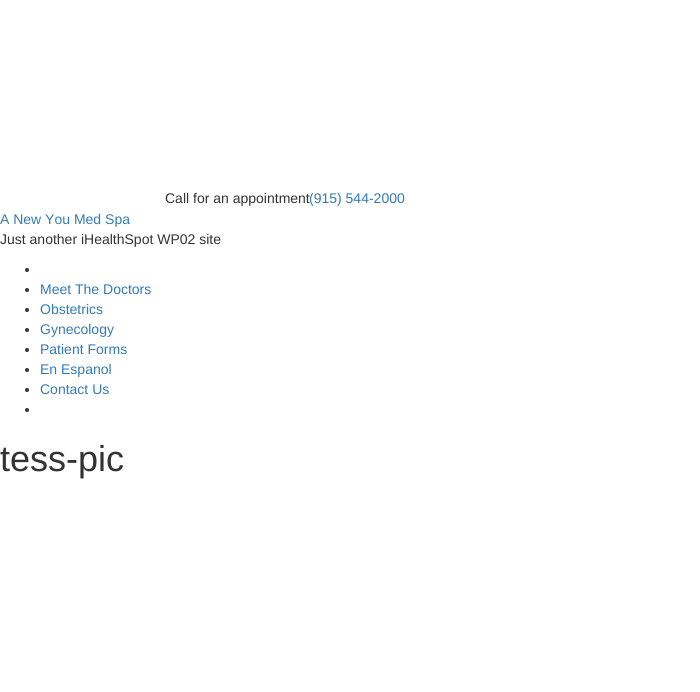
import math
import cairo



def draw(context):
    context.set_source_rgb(1, 1, 1)
    context.paint()
    context.set_source_rgb(51 / 255, 51 / 255, 51 / 255)
    context.arc(27, 270, 2, 0, 2 * math.pi)
    context.fill()
    context.arc(27, 290, 2, 0, 2 * math.pi)
    context.fill()
    context.arc(27, 310, 2, 0, 2 * math.pi)
    context.fill()
    context.arc(27, 330, 2, 0, 2 * math.pi)
    context.fill()
    context.arc(27, 350, 2, 0, 2 * math.pi)
    context.fill()
    context.arc(27, 370, 2, 0, 2 * math.pi)
    context.fill()
    context.arc(27, 390, 2, 0, 2 * math.pi)
    context.fill()
    context.arc(27, 410, 2, 0, 2 * math.pi)
    context.fill()
    context.select_font_face("Liberation Sans")
    context.set_font_size(14)
    context.move_to(165, 203)
    context.show_text("Call for an appointment")
    context.set_source_rgb(51 / 255, 122 / 255, 183 / 255)
    context.move_to(309, 203)
    context.show_text("(915) 544-2000")
    context.move_to(0, 224)
    context.show_text("A New You Med Spa")
    context.set_source_rgb(51 / 255, 51 / 255, 51 / 255)
    context.move_to(0, 244)
    context.show_text("Just another iHealthSpot WP02 site")
    context.set_source_rgb(51 / 255, 122 / 255, 183 / 255)
    context.move_to(40, 294)
    context.show_text("Meet The Doctors")
    context.move_to(40, 314)
    context.show_text("Obstetrics")
    context.move_to(40, 334)
    context.show_text("Gynecology")
    context.move_to(40, 354)
    context.show_text("Patient Forms")
    context.move_to(40, 374)
    context.show_text("En Espanol")
    context.move_to(40, 394)
    context.show_text("Contact Us")
    context.set_font_size(36)
    context.set_source_rgb(51 / 255, 51 / 255, 51 / 255)
    context.move_to(0, 471)
    context.show_text("tess-pic")


surface = cairo.ImageSurface(cairo.Format.RGB24, 700, 692)
context = cairo.Context(surface)
options = cairo.FontOptions()
options.set_hint_metrics(cairo.HintMetrics.OFF)
options.set_hint_style(cairo.HintStyle.NONE)
context.set_font_options(options)
context.set_miter_limit(4)
draw(context)
surface.write_to_png("out.png")
